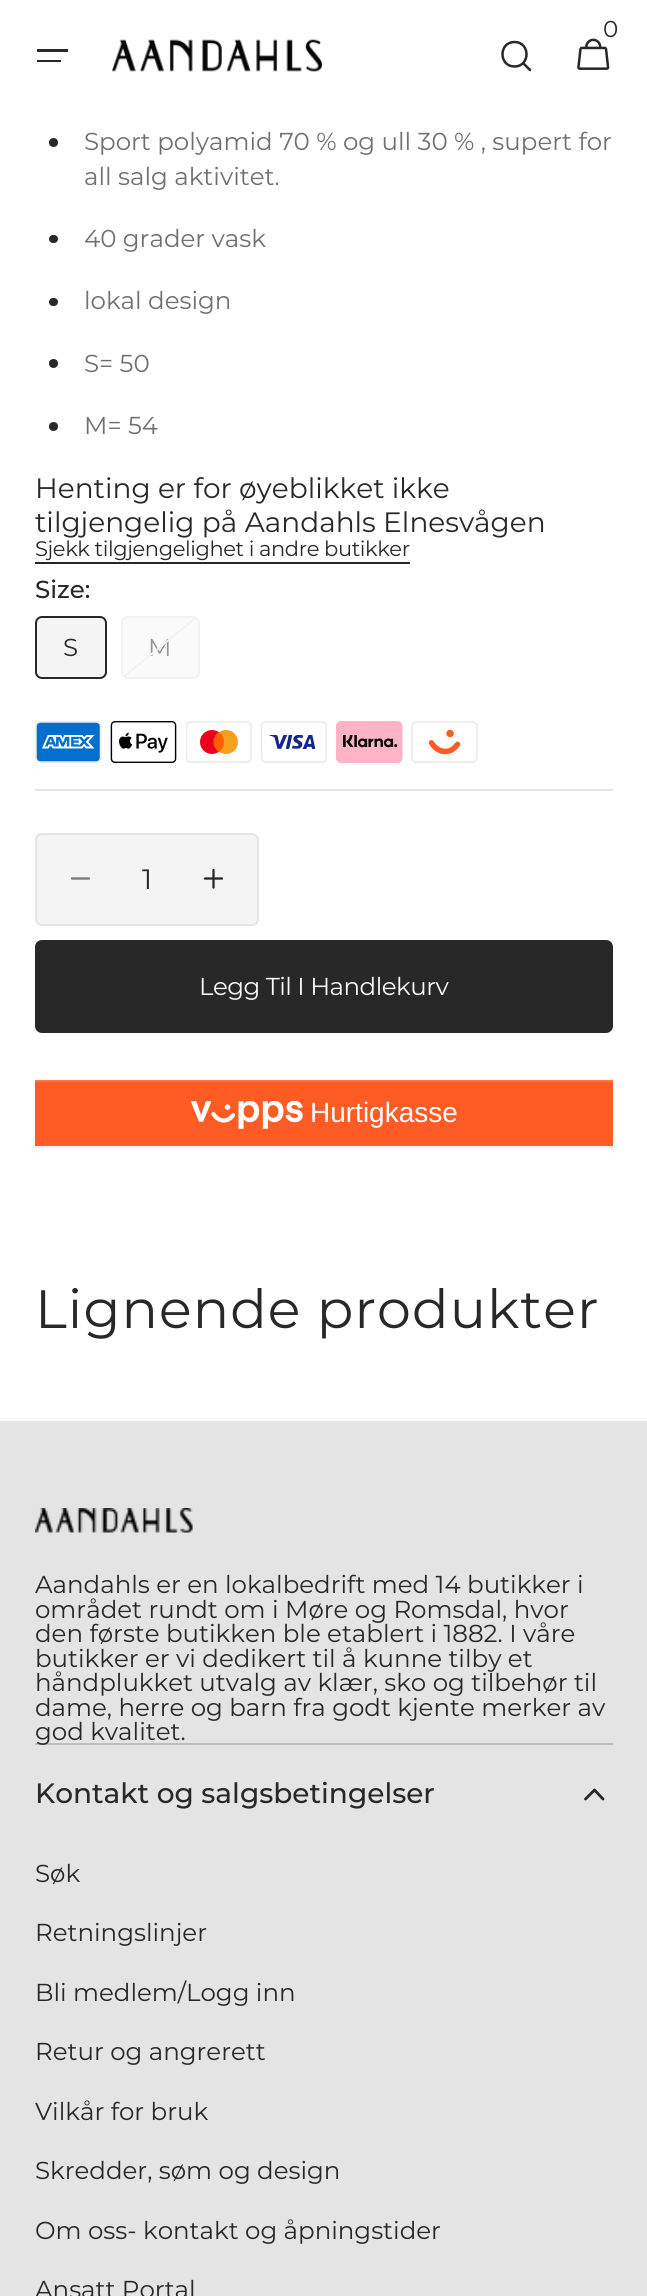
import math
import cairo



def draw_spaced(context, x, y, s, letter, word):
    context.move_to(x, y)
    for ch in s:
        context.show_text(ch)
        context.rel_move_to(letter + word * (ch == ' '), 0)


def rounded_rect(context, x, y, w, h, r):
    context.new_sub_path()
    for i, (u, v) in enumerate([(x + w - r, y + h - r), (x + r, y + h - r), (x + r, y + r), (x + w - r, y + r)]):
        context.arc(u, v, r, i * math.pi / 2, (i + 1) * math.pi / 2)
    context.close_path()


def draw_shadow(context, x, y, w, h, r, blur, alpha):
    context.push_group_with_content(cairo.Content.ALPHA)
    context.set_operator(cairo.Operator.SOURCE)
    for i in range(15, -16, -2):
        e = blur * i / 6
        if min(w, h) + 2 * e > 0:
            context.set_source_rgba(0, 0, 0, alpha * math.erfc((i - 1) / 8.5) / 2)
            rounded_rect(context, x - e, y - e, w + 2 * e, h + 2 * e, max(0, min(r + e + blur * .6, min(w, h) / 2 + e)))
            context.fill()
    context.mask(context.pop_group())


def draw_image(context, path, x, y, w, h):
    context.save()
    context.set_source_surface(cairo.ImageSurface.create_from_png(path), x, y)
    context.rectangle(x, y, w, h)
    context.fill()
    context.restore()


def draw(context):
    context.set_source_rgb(1, 1, 1)
    context.paint()
    draw_image(context, "images/1.png", 577, 38, 33, 32)
    context.new_path()
    context.move_to(514.5, 66.5)
    context.curve_to(530.5, 66.5, 530.5, 42, 514.5, 42)
    context.curve_to(498.5, 42, 498.5, 66.5, 514.5, 66.5)
    context.close_path()
    context.move_to(523, 63)
    context.line_to(530, 70)
    context.set_source_rgb(40 / 255, 40 / 255, 40 / 255)
    context.set_line_width(2.5)
    context.set_line_cap(cairo.LineCap.ROUND)
    context.set_line_join(cairo.LineJoin.ROUND)
    context.stroke()
    context.rectangle(37, 49, 31, 3)
    context.fill()
    context.rectangle(37, 60, 24, 2)
    context.fill()
    draw_image(context, "images/2.png", 112, 39, 210, 33)
    context.arc(53.5, 142.5, 4.5, 0, 2 * math.pi)
    context.fill()
    rounded_rect(context, 49, 235, 9, 8, 4)
    context.fill()
    rounded_rect(context, 49, 298, 9, 8, 4)
    context.fill()
    context.arc(53.5, 363.5, 4.5, 0, 2 * math.pi)
    context.fill()
    context.arc(53.5, 426.5, 4.5, 0, 2 * math.pi)
    context.fill()
    context.rectangle(35, 562, 375, 2)
    context.fill()
    context.set_source_rgb(244 / 255, 244 / 255, 244 / 255)
    rounded_rect(context, 36, 617, 70, 61, 6)
    context.fill_preserve()
    context.set_source_rgb(40 / 255, 40 / 255, 40 / 255)
    context.set_line_width(2)
    context.set_line_cap(cairo.LineCap.BUTT)
    context.set_line_join(cairo.LineJoin.MITER)
    context.stroke()
    context.set_source_rgb(250 / 255, 250 / 255, 250 / 255)
    rounded_rect(context, 122, 617, 77, 61, 6)
    context.fill_preserve()
    context.set_source_rgb(242 / 255, 242 / 255, 242 / 255)
    context.stroke()
    draw_image(context, "images/3.png", 35, 721, 67, 42)
    draw_image(context, "images/4.png", 110, 721, 67, 42)
    draw_image(context, "images/5.png", 186, 721, 66, 42)
    draw_image(context, "images/6.png", 261, 721, 66, 42)
    draw_image(context, "images/7.png", 336, 721, 67, 42)
    draw_image(context, "images/8.png", 411, 721, 67, 42)
    context.set_source_rgb(229 / 255, 229 / 255, 229 / 255)
    context.rectangle(35, 789, 578, 2)
    context.fill()
    context.set_source_rgb(244 / 255, 244 / 255, 244 / 255)
    rounded_rect(context, 36, 834, 222, 91, 6)
    context.fill_preserve()
    context.set_source_rgb(229 / 255, 229 / 255, 229 / 255)
    context.stroke()
    context.new_path()
    context.move_to(89, 878.5)
    context.line_to(72, 878.5)
    context.set_source_rgb(122 / 255, 122 / 255, 122 / 255)
    context.set_line_width(2.3)
    context.set_line_cap(cairo.LineCap.ROUND)
    context.stroke()
    context.new_path()
    context.move_to(222, 878.5)
    context.line_to(205, 878.5)
    context.move_to(213.5, 887.5)
    context.line_to(213.5, 870)
    context.set_source_rgb(40 / 255, 40 / 255, 40 / 255)
    context.stroke()
    rounded_rect(context, 35, 940, 578, 93, 7)
    context.fill()
    context.set_source_rgb(0, 0, 0)
    draw_shadow(context, 35, 1082, 578, 66, 0, 1, 0.07)
    context.set_source_rgb(1, 91 / 255, 36 / 255)
    context.rectangle(35, 1082, 578, 64)
    context.fill()
    context.set_source_rgb(1, 116 / 255, 69 / 255)
    context.rectangle(35, 1080, 578, 2)
    context.fill()
    draw_image(context, "images/9.png", 191, 1101, 112, 28)
    context.set_source_rgb(228 / 255, 228 / 255, 228 / 255)
    context.rectangle(0, 1421, 647, 875)
    context.fill()
    draw_image(context, "images/10.png", 35, 1508, 158, 25)
    context.new_path()
    context.move_to(585.5, 1799)
    context.line_to(594.5, 1790)
    context.line_to(603, 1799)
    context.set_source_rgb(40 / 255, 40 / 255, 40 / 255)
    context.set_line_width(2.8)
    context.set_line_join(cairo.LineJoin.ROUND)
    context.stroke()
    context.select_font_face("Montserrat")
    context.set_font_size(23)
    context.move_to(603, 37)
    context.show_text("0")
    context.set_font_size(24.5)
    context.set_source_rgb(112 / 255, 112 / 255, 112 / 255)
    context.move_to(84, 150)
    context.show_text("Sport polyamid 70 % og ull 30 % , supert for")
    context.move_to(84, 185)
    context.show_text("all salg aktivitet.")
    context.move_to(84, 247)
    context.show_text("40 grader vask")
    context.move_to(84, 309)
    context.show_text("lokal design")
    context.move_to(84, 372)
    context.show_text("S= 50")
    context.move_to(84, 434)
    context.show_text("M= 54")
    context.set_font_size(28)
    context.set_source_rgb(40 / 255, 40 / 255, 40 / 255)
    context.move_to(35, 498)
    context.show_text("Henting er for øyeblikket ikke")
    context.move_to(35, 532)
    context.show_text("tilgjengelig på Aandahls Elnesvågen")
    context.set_font_size(21)
    draw_spaced(context, 35, 556, "Sjekk tilgjengelighet i andre butikker", -0.4, 0)
    context.select_font_face("Montserrat Medium")
    context.set_font_size(24.5)
    context.move_to(35, 598)
    context.show_text("Size:")
    context.select_font_face("Montserrat")
    context.move_to(63, 656)
    context.show_text("S")
    context.set_source_rgb(148 / 255, 148 / 255, 148 / 255)
    context.move_to(148, 656)
    context.show_text("M")
    context.set_source_rgb(242 / 255, 242 / 255, 242 / 255)
    context.new_path()
    context.move_to(123, 676)
    context.line_to(194, 618)
    context.line_to(197, 618)
    context.line_to(125, 677)
    context.line_to(123, 677)
    context.close_path()
    context.fill()
    context.set_font_size(28)
    context.set_source_rgb(40 / 255, 40 / 255, 40 / 255)
    context.move_to(142, 889)
    context.show_text("1")
    context.set_font_size(24.5)
    context.set_source_rgb(249 / 255, 249 / 255, 249 / 255)
    draw_spaced(context, 199, 995, "Legg Til I Handlekurv", -0.5, 0)
    context.select_font_face("Liberation Sans")
    context.set_font_size(28)
    context.set_source_rgb(1, 1, 1)
    context.move_to(310, 1122)
    context.show_text("Hurtigkasse")
    context.select_font_face("Montserrat")
    context.set_font_size(53.9)
    context.set_source_rgb(40 / 255, 40 / 255, 40 / 255)
    draw_spaced(context, 35, 1328, "Lignende produkter", 1.1, 0)
    context.set_font_size(24.5)
    context.move_to(35, 1593)
    context.show_text("Aandahls er en lokalbedrift med 14 butikker i")
    context.move_to(35, 1618)
    context.show_text("området rundt om i Møre og Romsdal, hvor")
    context.move_to(35, 1642)
    context.show_text("den første butikken ble etablert i 1882. I våre")
    context.move_to(35, 1667)
    context.show_text("butikker er vi dedikert til å kunne tilby et")
    context.move_to(35, 1691)
    context.show_text("håndplukket utvalg av klær, sko og tilbehør til")
    context.move_to(35, 1716)
    context.show_text("dame, herre og barn fra godt kjente merker av")
    context.move_to(35, 1740)
    context.show_text("god kvalitet.")
    context.set_source_rgba(40 / 255, 40 / 255, 40 / 255, 0.2)
    context.rectangle(35, 1743, 578, 2)
    context.fill()
    context.select_font_face("Montserrat Medium")
    context.set_font_size(28)
    context.set_source_rgb(40 / 255, 40 / 255, 40 / 255)
    context.move_to(35, 1803)
    context.show_text("Kontakt og salgsbetingelser")
    context.select_font_face("Montserrat")
    context.set_font_size(24.5)
    context.move_to(35, 1882)
    context.show_text("Søk")
    context.move_to(35, 1941)
    context.show_text("Retningslinjer")
    context.move_to(35, 2001)
    context.show_text("Bli medlem/Logg inn")
    context.move_to(35, 2060)
    context.show_text("Retur og angrerett")
    context.move_to(35, 2120)
    context.show_text("Vilkår for bruk")
    context.move_to(35, 2179)
    context.show_text("Skredder, søm og design")
    context.move_to(35, 2239)
    context.show_text("Om oss- kontakt og åpningstider")
    context.move_to(35, 2298)
    context.show_text("Ansatt Portal")


surface = cairo.ImageSurface(cairo.Format.RGB24, 647, 2296)
context = cairo.Context(surface)
options = cairo.FontOptions()
options.set_hint_metrics(cairo.HintMetrics.OFF)
options.set_hint_style(cairo.HintStyle.NONE)
context.set_font_options(options)
context.set_miter_limit(4)
draw(context)
surface.write_to_png("out.png")
